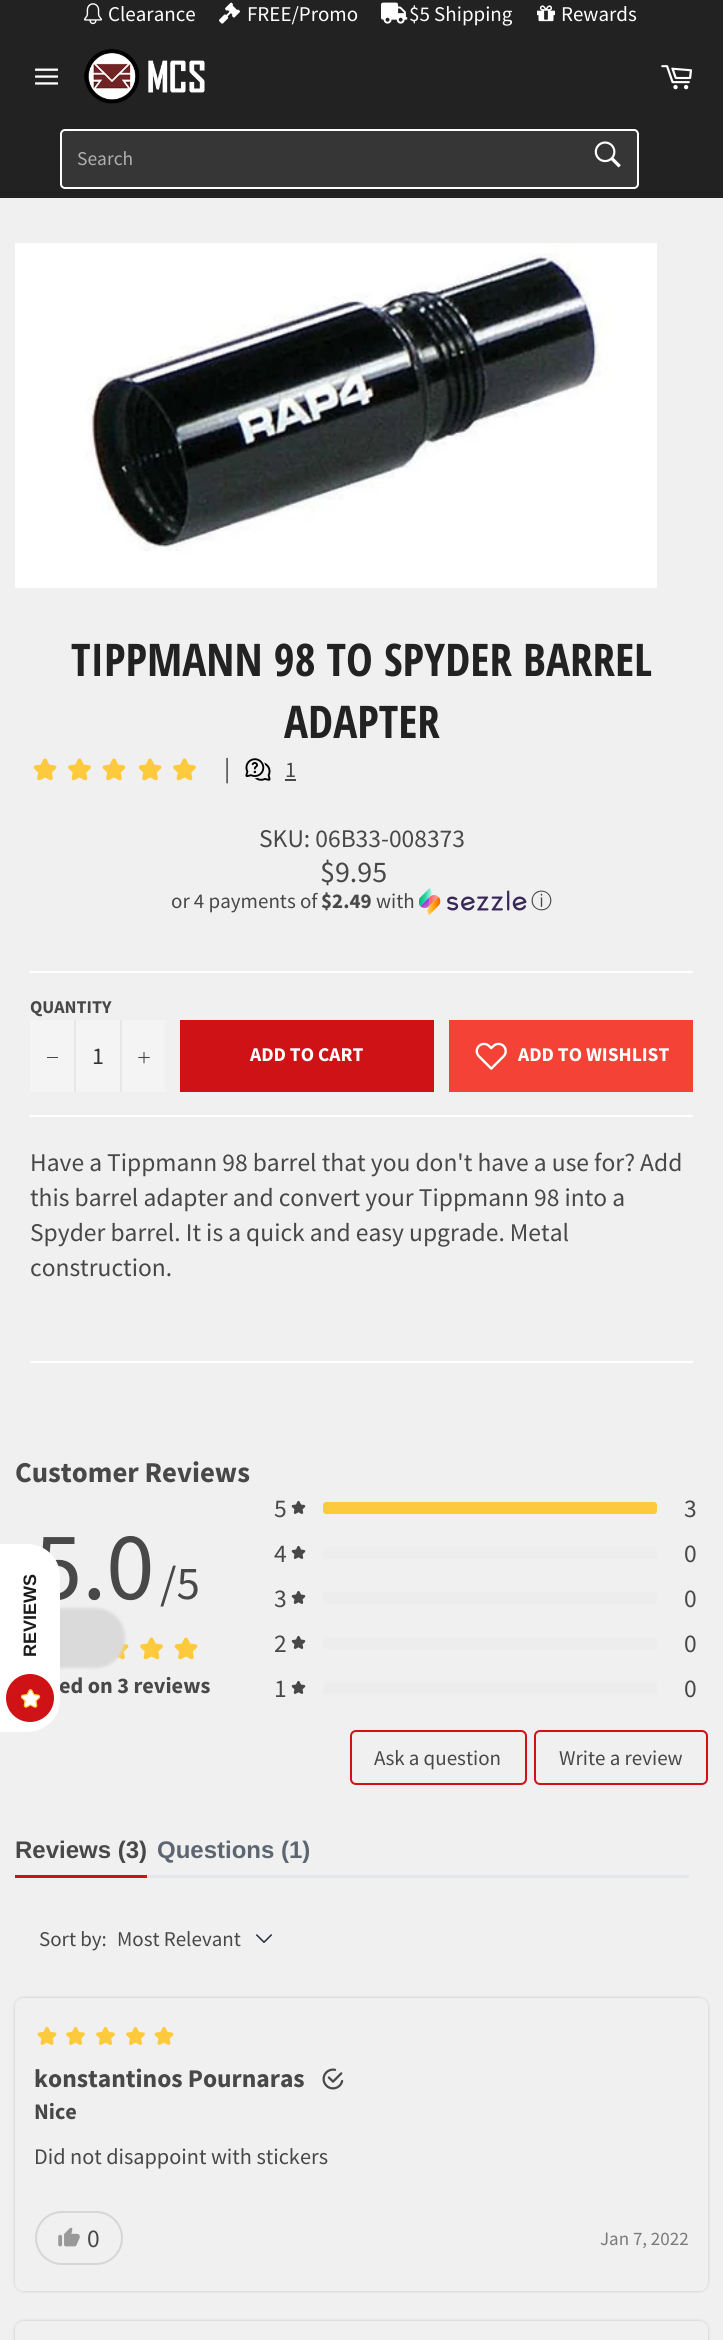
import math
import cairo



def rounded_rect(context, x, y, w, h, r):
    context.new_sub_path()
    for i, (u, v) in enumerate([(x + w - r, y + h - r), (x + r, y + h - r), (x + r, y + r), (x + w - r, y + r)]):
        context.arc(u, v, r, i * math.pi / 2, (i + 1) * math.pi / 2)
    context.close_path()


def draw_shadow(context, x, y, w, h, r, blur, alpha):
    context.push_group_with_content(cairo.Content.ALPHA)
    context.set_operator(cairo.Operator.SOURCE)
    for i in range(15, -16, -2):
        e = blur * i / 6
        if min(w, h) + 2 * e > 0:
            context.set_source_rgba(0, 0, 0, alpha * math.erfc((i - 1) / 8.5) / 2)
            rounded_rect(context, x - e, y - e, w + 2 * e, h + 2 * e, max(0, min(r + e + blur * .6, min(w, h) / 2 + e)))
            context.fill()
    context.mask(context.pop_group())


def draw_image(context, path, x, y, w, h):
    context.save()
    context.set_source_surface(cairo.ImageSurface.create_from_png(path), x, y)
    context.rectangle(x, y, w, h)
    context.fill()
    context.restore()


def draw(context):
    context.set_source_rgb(240 / 255, 240 / 255, 240 / 255)
    context.paint()
    context.set_source_rgb(34 / 255, 34 / 255, 34 / 255)
    context.rectangle(0, 0, 723, 198)
    context.fill()
    draw_image(context, "images/1.png", 83, 3, 20, 22)
    draw_image(context, "images/2.png", 219, 2, 21, 22)
    draw_image(context, "images/3.png", 381, 2, 27, 22)
    draw_image(context, "images/4.png", 537, 5, 18, 17)
    draw_image(context, "images/5.png", 661, 65, 31, 25)
    context.set_source_rgb(54 / 255, 54 / 255, 54 / 255)
    rounded_rect(context, 61, 130, 577, 58, 4)
    context.fill_preserve()
    context.set_source_rgb(1, 1, 1)
    context.stroke()
    draw_image(context, "images/6.png", 594, 141, 27, 27)
    draw_image(context, "images/7.png", 35, 68, 23, 17)
    draw_image(context, "images/8.png", 84, 48, 121, 56)
    draw_image(context, "images/9.png", 15, 243, 642, 345)
    draw_image(context, "images/10.png", 33, 758, 24, 23)
    draw_image(context, "images/11.png", 68, 758, 23, 23)
    draw_image(context, "images/10.png", 102, 758, 24, 23)
    draw_image(context, "images/10.png", 138, 758, 24, 23)
    draw_image(context, "images/11.png", 173, 758, 23, 23)
    draw_image(context, "images/12.png", 245, 758, 26, 23)
    context.set_source_rgb(72 / 255, 72 / 255, 72 / 255)
    context.rectangle(285, 779, 11, 2)
    context.fill()
    draw_image(context, "images/13.png", 419, 888, 108, 27)
    context.set_source_rgb(1, 1, 1)
    context.rectangle(30, 971, 663, 2)
    context.fill()
    context.set_source_rgb(244 / 255, 244 / 255, 244 / 255)
    context.rectangle(30, 1020, 135, 72)
    context.fill()
    context.set_source_rgb(231 / 255, 231 / 255, 231 / 255)
    context.rectangle(74, 1020, 2, 72)
    context.fill()
    context.set_source_rgb(72 / 255, 72 / 255, 72 / 255)
    context.rectangle(47, 1057, 11, 1)
    context.fill()
    context.set_source_rgb(231 / 255, 231 / 255, 231 / 255)
    context.rectangle(120, 1020, 2, 72)
    context.fill()
    draw_image(context, "images/14.png", 138, 1052, 12, 12)
    context.set_source_rgb(207 / 255, 18 / 255, 22 / 255)
    context.rectangle(180, 1020, 254, 72)
    context.fill()
    context.set_source_rgb(244 / 255, 67 / 255, 54 / 255)
    context.rectangle(449, 1020, 244, 72)
    context.fill()
    draw_image(context, "images/15.png", 475, 1042, 32, 28)
    context.set_source_rgb(1, 1, 1)
    context.rectangle(30, 1115, 663, 2)
    context.fill()
    context.rectangle(30, 1361, 663, 2)
    context.fill()
    draw_image(context, "images/16.png", 109, 1641, 20, 19)
    draw_image(context, "images/11.png", 140, 1637, 23, 23)
    draw_image(context, "images/10.png", 174, 1637, 24, 23)
    draw_image(context, "images/17.png", 291, 1500, 15, 14)
    context.set_source_rgb(252 / 255, 202 / 255, 60 / 255)
    rounded_rect(context, 323, 1502, 334, 12, 3)
    context.fill()
    draw_image(context, "images/17.png", 291, 1545, 15, 14)
    context.set_source_rgb(237 / 255, 237 / 255, 237 / 255)
    rounded_rect(context, 323, 1547, 334, 12, 3)
    context.fill()
    draw_image(context, "images/17.png", 291, 1590, 15, 14)
    rounded_rect(context, 323, 1592, 334, 12, 3)
    context.fill()
    draw_image(context, "images/17.png", 291, 1635, 15, 14)
    rounded_rect(context, 323, 1637, 334, 12, 3)
    context.fill()
    draw_image(context, "images/17.png", 291, 1680, 15, 14)
    rounded_rect(context, 323, 1682, 334, 12, 3)
    context.fill()
    rounded_rect(context, 351, 1731, 175, 53, 5)
    context.set_source_rgb(207 / 255, 18 / 255, 22 / 255)
    context.stroke()
    rounded_rect(context, 535, 1731, 172, 53, 5)
    context.stroke()
    context.rectangle(15, 1875, 132, 3)
    context.fill()
    context.set_source_rgb(228 / 255, 231 / 255, 236 / 255)
    context.rectangle(147, 1875, 542, 3)
    context.fill()
    draw_image(context, "images/18.png", 256, 1934, 16, 9)
    context.save()
    context.set_fill_rule(cairo.FillRule.EVEN_ODD)
    context.new_path()
    context.move_to(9, 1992)
    context.line_to(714, 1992)
    context.line_to(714, 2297)
    context.line_to(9, 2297)
    context.close_path()
    context.move_to(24, 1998)
    context.line_to(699, 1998)
    context.curve_to(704, 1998, 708, 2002, 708, 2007)
    context.line_to(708, 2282)
    context.curve_to(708, 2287, 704, 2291, 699, 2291)
    context.line_to(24, 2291)
    context.curve_to(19, 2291, 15, 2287, 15, 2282)
    context.line_to(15, 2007)
    context.curve_to(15, 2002, 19, 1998, 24, 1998)
    context.close_path()
    context.clip()
    context.set_source_rgb(0, 0, 0)
    draw_shadow(context, 15, 1998, 693, 293, 9, 1.5, 0.2)
    context.restore()
    draw_image(context, "images/19.png", 37, 2026, 20, 19)
    draw_image(context, "images/20.png", 66, 2026, 19, 19)
    draw_image(context, "images/20.png", 96, 2026, 19, 19)
    draw_image(context, "images/20.png", 126, 2026, 19, 19)
    draw_image(context, "images/19.png", 154, 2026, 20, 19)
    draw_image(context, "images/21.png", 322, 2068, 22, 22)
    rounded_rect(context, 36, 2212, 86, 52, 26)
    context.set_source_rgb(214 / 255, 214 / 255, 214 / 255)
    context.stroke()
    draw_image(context, "images/22.png", 58, 2227, 22, 20)
    context.save()
    context.set_fill_rule(cairo.FillRule.EVEN_ODD)
    context.new_path()
    context.move_to(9, 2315)
    context.line_to(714, 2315)
    context.line_to(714, 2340)
    context.line_to(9, 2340)
    context.close_path()
    context.move_to(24, 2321)
    context.line_to(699, 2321)
    context.curve_to(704, 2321, 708, 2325, 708, 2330)
    context.line_to(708, 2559)
    context.curve_to(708, 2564, 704, 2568, 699, 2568)
    context.line_to(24, 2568)
    context.curve_to(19, 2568, 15, 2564, 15, 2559)
    context.line_to(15, 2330)
    context.curve_to(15, 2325, 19, 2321, 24, 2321)
    context.close_path()
    context.clip()
    context.set_source_rgb(0, 0, 0)
    draw_shadow(context, 15, 2321, 693, 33, 9, 1.5, 0.2)
    context.restore()
    context.set_source_rgb(218 / 255, 218 / 255, 218 / 255)
    draw_shadow(context, -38, 1608, 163, 60, 33, 1.5, 1)
    context.select_font_face("Source Sans Pro")
    context.set_font_size(21)
    context.set_source_rgb(1, 1, 1)
    context.move_to(108, 21)
    context.show_text("Clearance")
    context.move_to(247, 21)
    context.show_text("FREE/Promo")
    context.move_to(409, 21)
    context.show_text("$5 Shipping")
    context.move_to(561, 21)
    context.show_text("Rewards")
    context.set_font_size(19.5)
    context.set_source_rgb(175 / 255, 175 / 255, 175 / 255)
    context.move_to(77, 165)
    context.show_text("Search")
    context.select_font_face("Open Sans Condensed", cairo.FontSlant.NORMAL, cairo.FontWeight.BOLD)
    context.set_font_size(45)
    context.set_source_rgb(34 / 255, 34 / 255, 34 / 255)
    context.move_to(71, 676)
    context.show_text("TIPPMANN 98 TO SPYDER BARREL")
    context.move_to(284, 738)
    context.show_text("ADAPTER")
    context.select_font_face("Source Sans Pro")
    context.set_font_size(25.5)
    context.set_source_rgb(72 / 255, 72 / 255, 72 / 255)
    context.move_to(224, 777)
    context.show_text("|")
    context.set_font_size(22.25)
    context.move_to(285, 777)
    context.show_text("1")
    context.set_font_size(25.5)
    context.move_to(259, 847)
    context.show_text("SKU: 06B33-008373")
    context.set_font_size(30)
    context.move_to(320, 882)
    context.show_text("$9.95")
    context.set_font_size(21)
    context.move_to(171, 908)
    context.show_text("or 4 payments of")
    context.select_font_face("Source Sans Pro", cairo.FontSlant.NORMAL, cairo.FontWeight.BOLD)
    context.move_to(321, 908)
    context.show_text("$2.49")
    context.select_font_face("Source Sans Pro")
    context.move_to(376, 908)
    context.show_text("with")
    context.select_font_face("WenQuanYi Zen Hei Medium")
    context.move_to(531, 908)
    context.show_text("ⓘ")
    context.select_font_face("Source Sans Pro", cairo.FontSlant.NORMAL, cairo.FontWeight.BOLD)
    context.set_font_size(18)
    context.move_to(30, 1013)
    context.show_text("QUANTITY")
    context.select_font_face("Source Sans Pro")
    context.set_font_size(24)
    context.set_source_rgb(51 / 255, 51 / 255, 51 / 255)
    context.move_to(92, 1064)
    context.show_text("1")
    context.select_font_face("Source Sans Pro", cairo.FontSlant.NORMAL, cairo.FontWeight.BOLD)
    context.set_font_size(19.5)
    context.set_source_rgb(1, 1, 1)
    context.move_to(250, 1061)
    context.show_text("ADD TO CART")
    context.move_to(518, 1061)
    context.show_text("ADD TO WISHLIST")
    context.select_font_face("Source Sans Pro")
    context.set_font_size(25.5)
    context.set_source_rgb(72 / 255, 72 / 255, 72 / 255)
    context.move_to(30, 1171)
    context.show_text("Have a Tippmann 98 barrel that you don't have a use for? Add")
    context.move_to(30, 1206)
    context.show_text("this barrel adapter and convert your Tippmann 98 into a")
    context.move_to(30, 1241)
    context.show_text("Spyder barrel. It is a quick and easy upgrade. Metal")
    context.move_to(30, 1276)
    context.show_text("construction.")
    context.select_font_face("Source Sans Pro", cairo.FontSlant.NORMAL, cairo.FontWeight.BOLD)
    context.set_font_size(28.75)
    context.move_to(15, 1482)
    context.show_text("Customer Reviews")
    context.select_font_face("Source Sans Pro")
    context.set_font_size(97)
    context.move_to(34, 1599)
    context.show_text("5.0")
    context.set_font_size(47)
    context.move_to(160, 1599)
    context.show_text("/5")
    context.select_font_face("Source Sans Pro", cairo.FontSlant.NORMAL, cairo.FontWeight.BOLD)
    context.set_font_size(22.25)
    context.move_to(59, 1693)
    context.show_text("ed on 3 reviews")
    context.select_font_face("Source Sans Pro")
    context.set_font_size(25.5)
    context.move_to(274, 1517)
    context.show_text("5")
    context.move_to(684, 1517)
    context.show_text("3")
    context.move_to(274, 1562)
    context.show_text("4")
    context.move_to(684, 1562)
    context.show_text("0")
    context.move_to(274, 1607)
    context.show_text("3")
    context.move_to(684, 1607)
    context.show_text("0")
    context.move_to(274, 1652)
    context.show_text("2")
    context.move_to(684, 1652)
    context.show_text("0")
    context.move_to(274, 1697)
    context.show_text("1")
    context.move_to(684, 1697)
    context.show_text("0")
    context.set_font_size(21)
    context.move_to(374, 1765)
    context.show_text("Ask a question")
    context.move_to(559, 1765)
    context.show_text("Write a review")
    context.select_font_face("Liberation Sans", cairo.FontSlant.NORMAL, cairo.FontWeight.BOLD)
    context.set_font_size(24)
    context.move_to(15, 1858)
    context.show_text("Reviews (3)")
    context.set_source_rgb(92 / 255, 101 / 255, 112 / 255)
    context.move_to(157, 1858)
    context.show_text("Questions (1)")
    context.select_font_face("Source Sans Pro")
    context.set_font_size(21)
    context.set_source_rgb(72 / 255, 72 / 255, 72 / 255)
    context.move_to(39, 1946)
    context.show_text("Sort by:")
    context.move_to(117, 1946)
    context.show_text("Most Relevant")
    context.select_font_face("Source Sans Pro", cairo.FontSlant.NORMAL, cairo.FontWeight.BOLD)
    context.set_font_size(25.5)
    context.move_to(34, 2087)
    context.show_text("konstantinos Pournaras")
    context.set_font_size(22.25)
    context.move_to(34, 2119)
    context.show_text("Nice")
    context.select_font_face("Source Sans Pro")
    context.move_to(34, 2164)
    context.show_text("Did not disappoint with stickers")
    context.set_font_size(25.5)
    context.move_to(87, 2247)
    context.show_text("0")
    context.set_font_size(19)
    context.set_source_rgb(122 / 255, 122 / 255, 122 / 255)
    context.move_to(600, 2245)
    context.show_text("Jan 7, 2022")
    context.set_source_rgb(1, 1, 1)
    context.new_path()
    context.move_to(0, 1732)
    context.line_to(0, 1544)
    context.line_to(27, 1544)
    context.curve_to(45, 1544, 60, 1558, 60, 1576)
    context.line_to(60, 1700)
    context.curve_to(60, 1718, 45, 1732, 27, 1732)
    context.close_path()
    context.fill()
    context.select_font_face("Liberation Sans", cairo.FontSlant.NORMAL, cairo.FontWeight.BOLD)
    context.set_font_size(18)
    context.set_source_rgb(26 / 255, 26 / 255, 26 / 255)
    context.save()
    context.translate(36, 1657)
    context.rotate(-90 * math.pi / 180)
    context.move_to(0, 0)
    context.show_text("REVIEWS")
    context.restore()
    context.set_source_rgb(207 / 255, 18 / 255, 22 / 255)
    context.new_path()
    context.arc(30, 1698, 24, 0, 2 * math.pi)
    context.fill()
    draw_image(context, "images/23.png", 20, 1689, 21, 19)


surface = cairo.ImageSurface(cairo.Format.RGB24, 723, 2340)
context = cairo.Context(surface)
options = cairo.FontOptions()
options.set_hint_metrics(cairo.HintMetrics.OFF)
options.set_hint_style(cairo.HintStyle.NONE)
context.set_font_options(options)
context.set_miter_limit(4)
draw(context)
surface.write_to_png("out.png")
